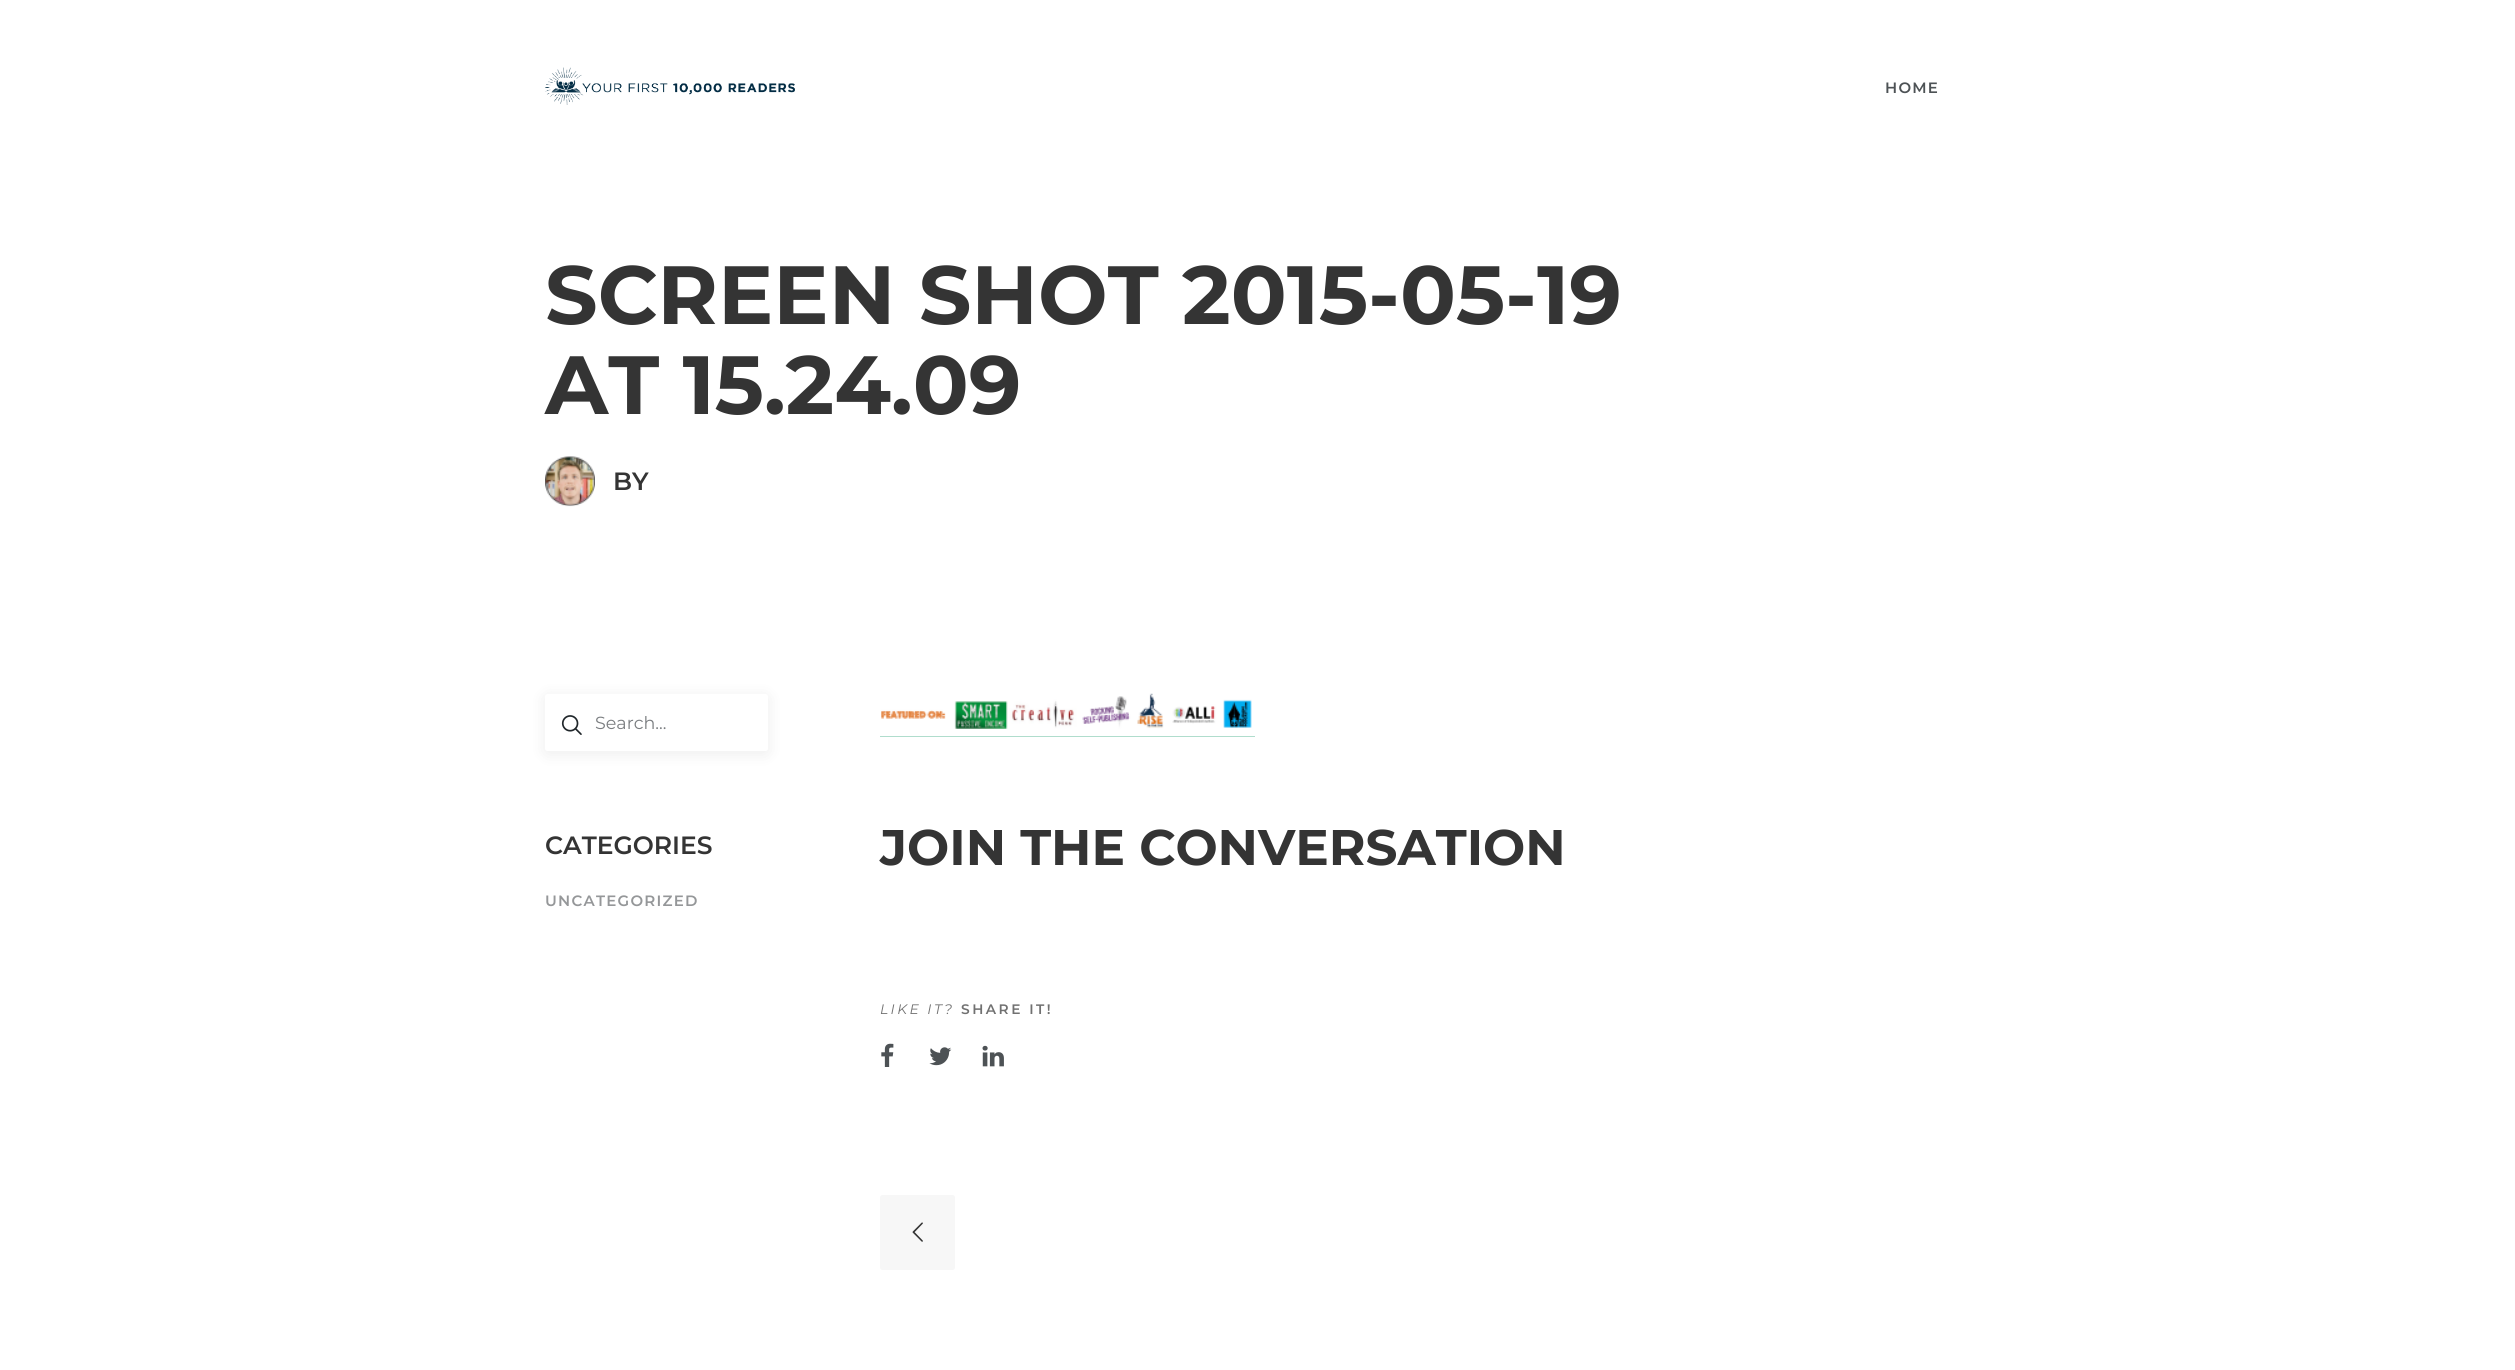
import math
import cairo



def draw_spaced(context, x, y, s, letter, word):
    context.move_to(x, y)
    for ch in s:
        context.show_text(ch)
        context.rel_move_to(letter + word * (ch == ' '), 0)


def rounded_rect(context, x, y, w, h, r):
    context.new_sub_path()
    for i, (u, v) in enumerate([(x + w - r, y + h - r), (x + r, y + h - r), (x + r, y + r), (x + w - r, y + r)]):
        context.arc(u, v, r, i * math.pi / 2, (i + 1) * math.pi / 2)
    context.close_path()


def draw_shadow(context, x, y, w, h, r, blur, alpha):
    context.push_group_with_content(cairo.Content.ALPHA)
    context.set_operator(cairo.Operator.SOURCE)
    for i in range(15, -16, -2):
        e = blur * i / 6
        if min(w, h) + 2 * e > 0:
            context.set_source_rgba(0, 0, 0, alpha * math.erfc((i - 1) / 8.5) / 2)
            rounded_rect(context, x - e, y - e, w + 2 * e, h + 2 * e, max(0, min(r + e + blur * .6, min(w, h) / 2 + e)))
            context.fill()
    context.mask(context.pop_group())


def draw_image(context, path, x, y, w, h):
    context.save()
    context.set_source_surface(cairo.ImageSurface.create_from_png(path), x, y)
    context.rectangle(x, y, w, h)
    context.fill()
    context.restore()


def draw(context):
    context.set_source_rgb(1, 1, 1)
    context.paint()
    draw_image(context, "images/1.png", 545, 67, 250, 38)
    draw_image(context, "images/2.png", 545, 456, 50, 51)
    context.set_source_rgb(52 / 255, 52 / 255, 52 / 255)
    draw_shadow(context, 544, 695, 225, 60, 4, 7.5, 0.08)
    context.set_source_rgb(1, 1, 1)
    rounded_rect(context, 545, 694, 223, 57, 2.5)
    context.fill()
    draw_image(context, "images/3.png", 561, 715, 21, 20)
    draw_image(context, "images/4.png", 881, 693, 371, 36)
    context.set_source_rgb(176 / 255, 221 / 255, 205 / 255)
    context.rectangle(880, 736, 375, 1)
    context.fill()
    draw_image(context, "images/5.png", 881, 1043, 13, 24)
    draw_image(context, "images/6.png", 929, 1047, 23, 19)
    draw_image(context, "images/7.png", 982, 1045, 22, 22)
    context.set_source_rgb(247 / 255, 247 / 255, 247 / 255)
    rounded_rect(context, 880, 1195, 75, 75, 2.5)
    context.fill()
    draw_image(context, "images/8.png", 912, 1222, 11, 20)
    context.select_font_face("Montserrat SemiBold")
    context.set_font_size(15)
    context.set_source_rgb(77 / 255, 82 / 255, 85 / 255)
    draw_spaced(context, 1885, 93, "HOME", 1.25, 0)
    context.select_font_face("Montserrat", cairo.FontSlant.NORMAL, cairo.FontWeight.BOLD)
    context.set_font_size(82.5)
    context.set_source_rgb(52 / 255, 52 / 255, 52 / 255)
    context.move_to(545, 324)
    context.show_text("SCREEN SHOT 2015-05-19")
    context.move_to(545, 414)
    context.show_text("AT 15.24.09")
    context.select_font_face("Montserrat SemiBold")
    context.set_font_size(25)
    context.move_to(613, 490)
    context.show_text("BY")
    context.select_font_face("Montserrat")
    context.set_font_size(17.5)
    context.set_source_rgb(122 / 255, 125 / 255, 128 / 255)
    context.move_to(595, 729)
    context.show_text("Search...")
    context.select_font_face("Montserrat SemiBold")
    context.set_font_size(25)
    context.set_source_rgb(52 / 255, 52 / 255, 52 / 255)
    context.move_to(545, 854)
    context.show_text("CATEGORIES")
    context.set_font_size(15)
    context.set_source_rgb(149 / 255, 151 / 255, 153 / 255)
    draw_spaced(context, 545, 906, "UNCATEGORIZED", 1.25, 0)
    context.select_font_face("Montserrat", cairo.FontSlant.NORMAL, cairo.FontWeight.BOLD)
    context.set_font_size(50)
    context.set_source_rgb(52 / 255, 52 / 255, 52 / 255)
    context.move_to(880, 865)
    context.show_text("JOIN THE CONVERSATION")
    context.select_font_face("Montserrat", cairo.FontSlant.ITALIC)
    context.set_font_size(13.75)
    context.set_source_rgb(113 / 255, 113 / 255, 113 / 255)
    draw_spaced(context, 880, 1014, "LIKE IT?", 2.5, 0)
    context.select_font_face("Montserrat SemiBold")
    draw_spaced(context, 961, 1014, "SHARE IT!", 2.5, 0)


surface = cairo.ImageSurface(cairo.Format.RGB24, 2515, 1370)
context = cairo.Context(surface)
options = cairo.FontOptions()
options.set_hint_metrics(cairo.HintMetrics.OFF)
options.set_hint_style(cairo.HintStyle.NONE)
context.set_font_options(options)
context.set_miter_limit(4)
draw(context)
surface.write_to_png("out.png")
